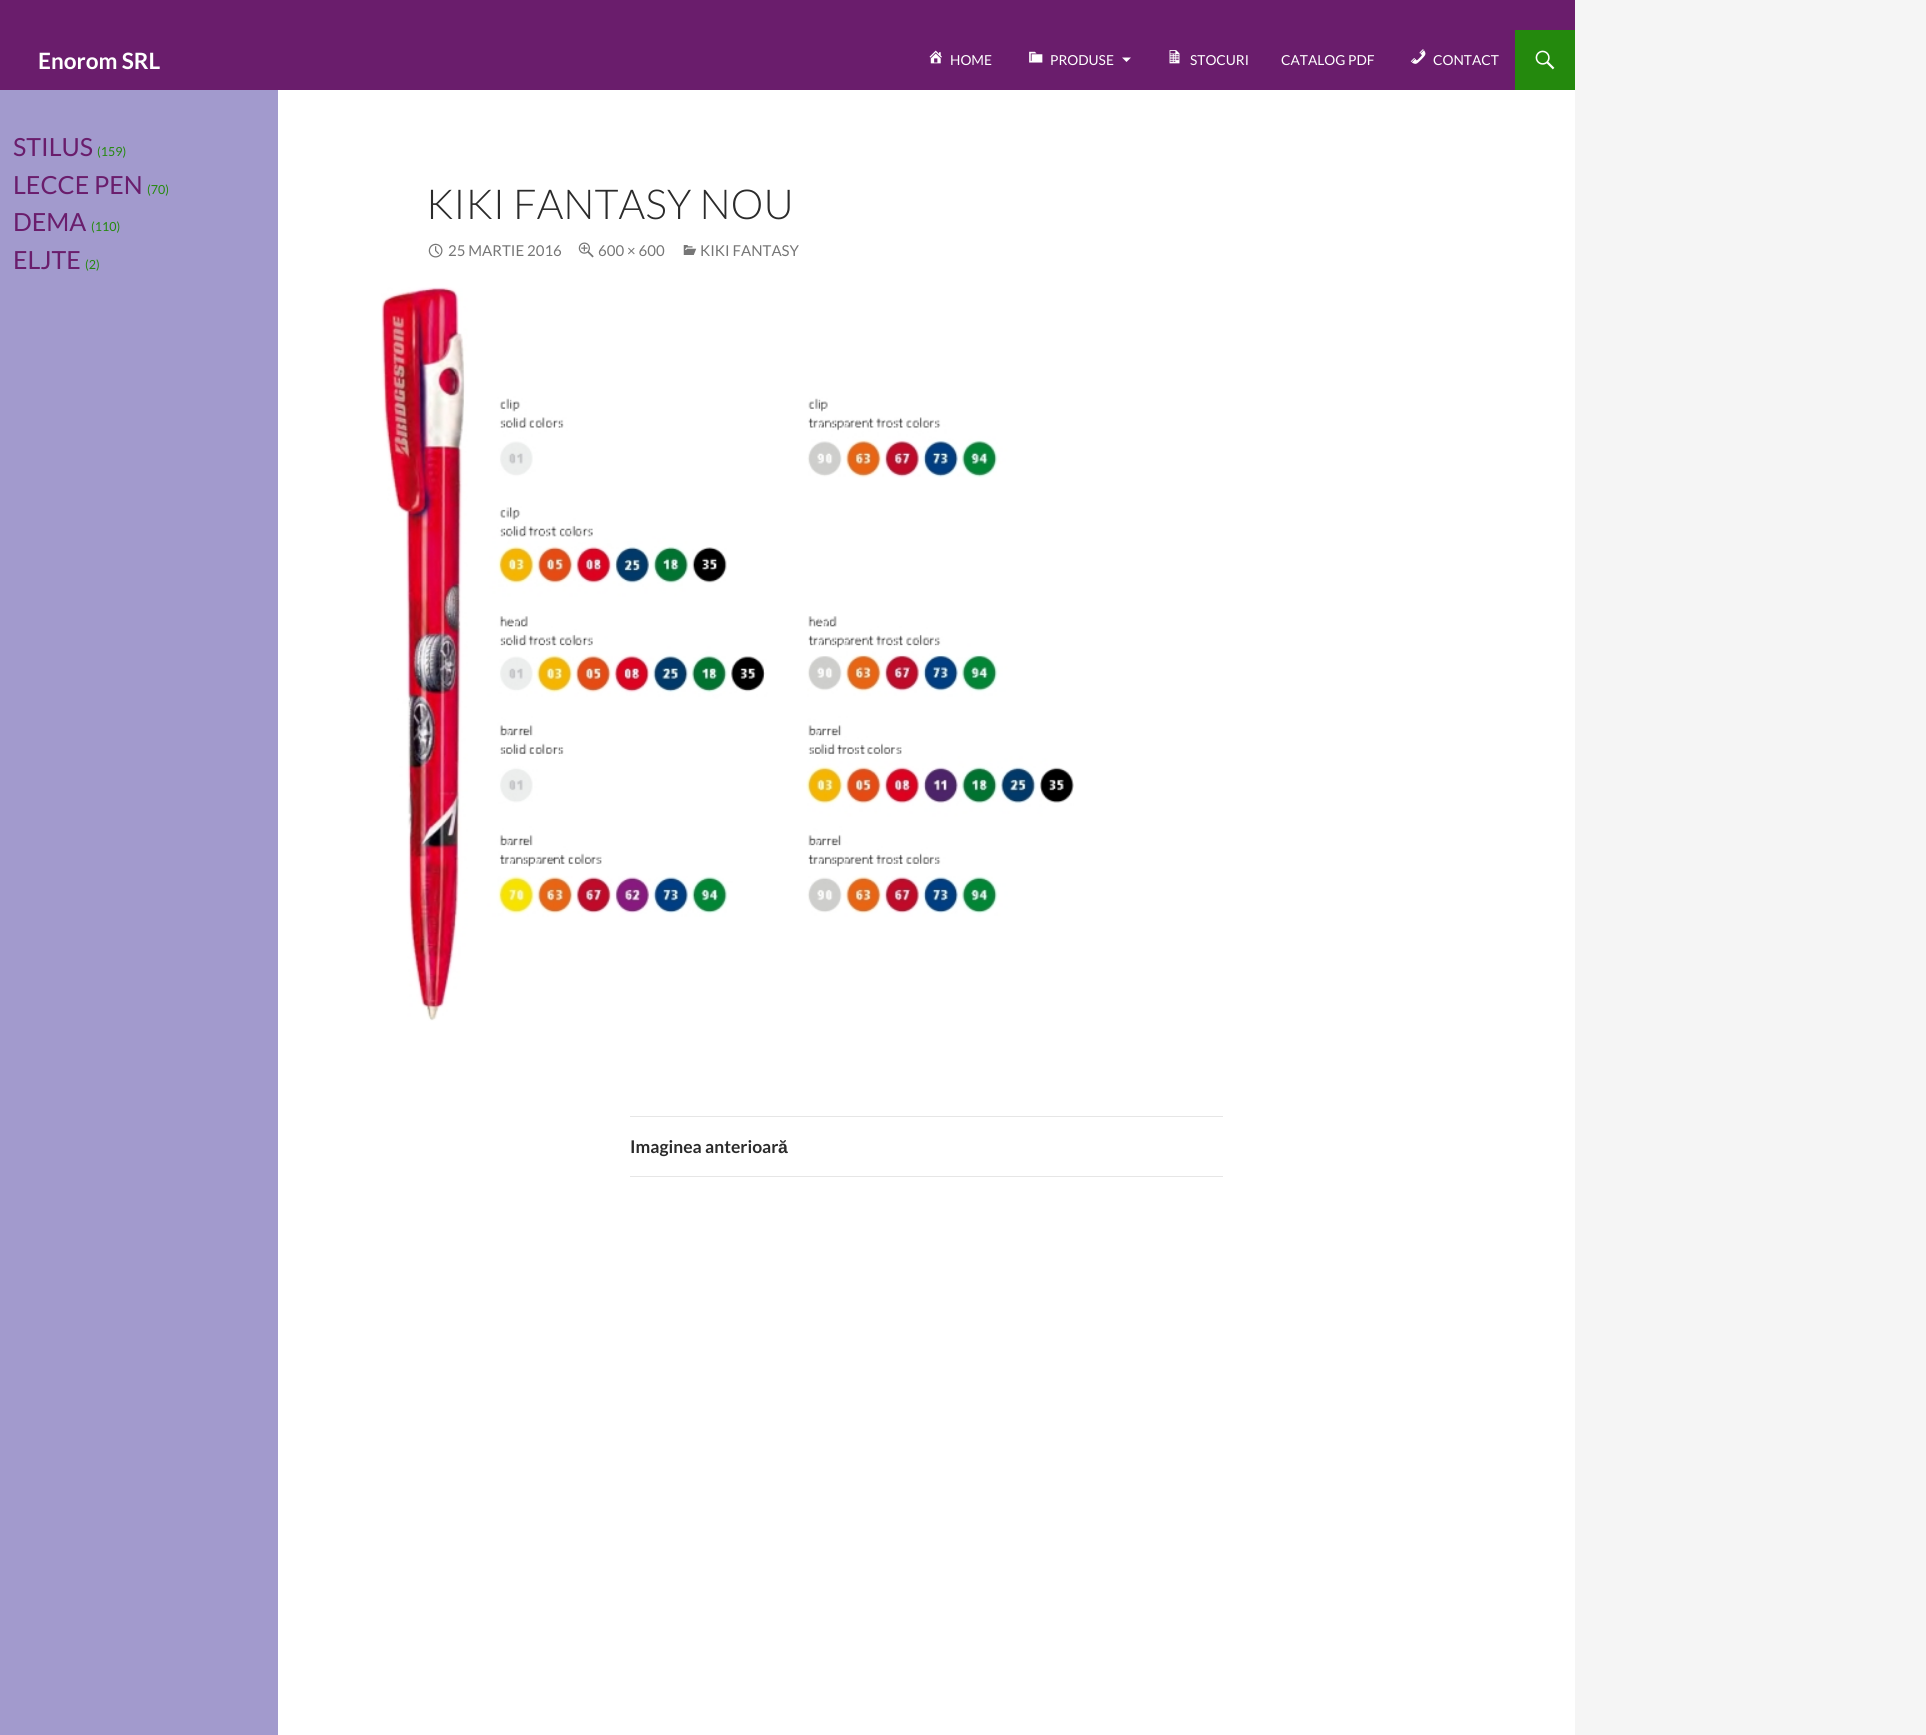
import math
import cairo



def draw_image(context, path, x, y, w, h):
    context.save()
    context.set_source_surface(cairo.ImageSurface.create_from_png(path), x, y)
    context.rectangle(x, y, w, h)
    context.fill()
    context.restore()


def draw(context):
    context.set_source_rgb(245 / 255, 245 / 255, 245 / 255)
    context.paint()
    context.set_source_rgb(1, 1, 1)
    context.rectangle(278, 90, 1297, 1645)
    context.fill()
    context.set_source_rgb(106 / 255, 29 / 255, 108 / 255)
    context.rectangle(0, 0, 1575, 90)
    context.fill()
    draw_image(context, "images/1.png", 929, 50, 13, 14)
    draw_image(context, "images/2.png", 1029, 51, 14, 12)
    context.set_source_rgb(1, 1, 1)
    context.new_path()
    context.move_to(1122, 57.5)
    context.line_to(1131, 57.5)
    context.line_to(1126.5, 62)
    context.close_path()
    context.fill()
    draw_image(context, "images/3.png", 1169, 50, 11, 14)
    draw_image(context, "images/4.png", 1410, 49, 16, 15)
    context.set_source_rgb(36 / 255, 137 / 255, 13 / 255)
    context.rectangle(1515, 30, 60, 60)
    context.fill()
    draw_image(context, "images/5.png", 1535, 50, 20, 20)
    context.set_source_rgb(162 / 255, 154 / 255, 205 / 255)
    context.rectangle(0, 90, 278, 1645)
    context.fill()
    draw_image(context, "images/6.png", 428, 243, 15, 15)
    draw_image(context, "images/7.png", 578, 242, 16, 16)
    draw_image(context, "images/8.png", 683, 245, 14, 10)
    draw_image(context, "images/9.png", 381, 287, 693, 734)
    context.set_source_rgb(230 / 255, 230 / 255, 230 / 255)
    context.rectangle(630, 1116, 593, 1)
    context.fill()
    context.rectangle(630, 1176, 593, 1)
    context.fill()
    context.select_font_face("Lato", cairo.FontSlant.NORMAL, cairo.FontWeight.BOLD)
    context.set_font_size(22.5)
    context.set_source_rgb(1, 1, 1)
    context.move_to(38, 69)
    context.show_text("Enorom SRL")
    context.select_font_face("Lato")
    context.set_font_size(13.75)
    context.move_to(950, 65)
    context.show_text("HOME")
    context.move_to(1050, 65)
    context.show_text("PRODUSE")
    context.move_to(1190, 65)
    context.show_text("STOCURI")
    context.move_to(1281, 65)
    context.show_text("CATALOG PDF")
    context.move_to(1433, 65)
    context.show_text("CONTACT")
    context.set_font_size(25)
    context.set_source_rgb(106 / 255, 29 / 255, 108 / 255)
    context.move_to(13, 156)
    context.show_text("STILUS")
    context.set_font_size(12.5)
    context.set_source_rgb(36 / 255, 137 / 255, 13 / 255)
    context.move_to(97, 156)
    context.show_text("(159)")
    context.set_font_size(25)
    context.set_source_rgb(106 / 255, 29 / 255, 108 / 255)
    context.move_to(13, 194)
    context.show_text("LECCE PEN")
    context.set_font_size(12.5)
    context.set_source_rgb(36 / 255, 137 / 255, 13 / 255)
    context.move_to(147, 194)
    context.show_text("(70)")
    context.set_font_size(25)
    context.set_source_rgb(106 / 255, 29 / 255, 108 / 255)
    context.move_to(13, 231)
    context.show_text("DEMA")
    context.set_font_size(12.5)
    context.set_source_rgb(36 / 255, 137 / 255, 13 / 255)
    context.move_to(91, 231)
    context.show_text("(110)")
    context.set_font_size(25)
    context.set_source_rgb(106 / 255, 29 / 255, 108 / 255)
    context.move_to(13, 269)
    context.show_text("ELJTE")
    context.set_font_size(12.5)
    context.set_source_rgb(36 / 255, 137 / 255, 13 / 255)
    context.move_to(85, 269)
    context.show_text("(2)")
    context.select_font_face("Lato Light")
    context.set_font_size(41.25)
    context.set_source_rgb(43 / 255, 43 / 255, 43 / 255)
    context.move_to(426, 219)
    context.show_text("KIKI FANTASY NOU")
    context.select_font_face("Lato")
    context.set_font_size(15)
    context.set_source_rgb(118 / 255, 118 / 255, 118 / 255)
    context.move_to(448, 256)
    context.show_text("25 MARTIE 2016")
    context.move_to(598, 256)
    context.show_text("600 × 600")
    context.move_to(700, 256)
    context.show_text("KIKI FANTASY")
    context.select_font_face("Lato", cairo.FontSlant.NORMAL, cairo.FontWeight.BOLD)
    context.set_font_size(17.5)
    context.set_source_rgb(43 / 255, 43 / 255, 43 / 255)
    context.move_to(630, 1153)
    context.show_text("Imaginea anterioar")
    context.select_font_face("Liberation Sans", cairo.FontSlant.NORMAL, cairo.FontWeight.BOLD)
    context.move_to(778, 1153)
    context.show_text("ă")


surface = cairo.ImageSurface(cairo.Format.RGB24, 1926, 1735)
context = cairo.Context(surface)
options = cairo.FontOptions()
options.set_hint_metrics(cairo.HintMetrics.OFF)
options.set_hint_style(cairo.HintStyle.NONE)
context.set_font_options(options)
context.set_miter_limit(4)
draw(context)
surface.write_to_png("out.png")
